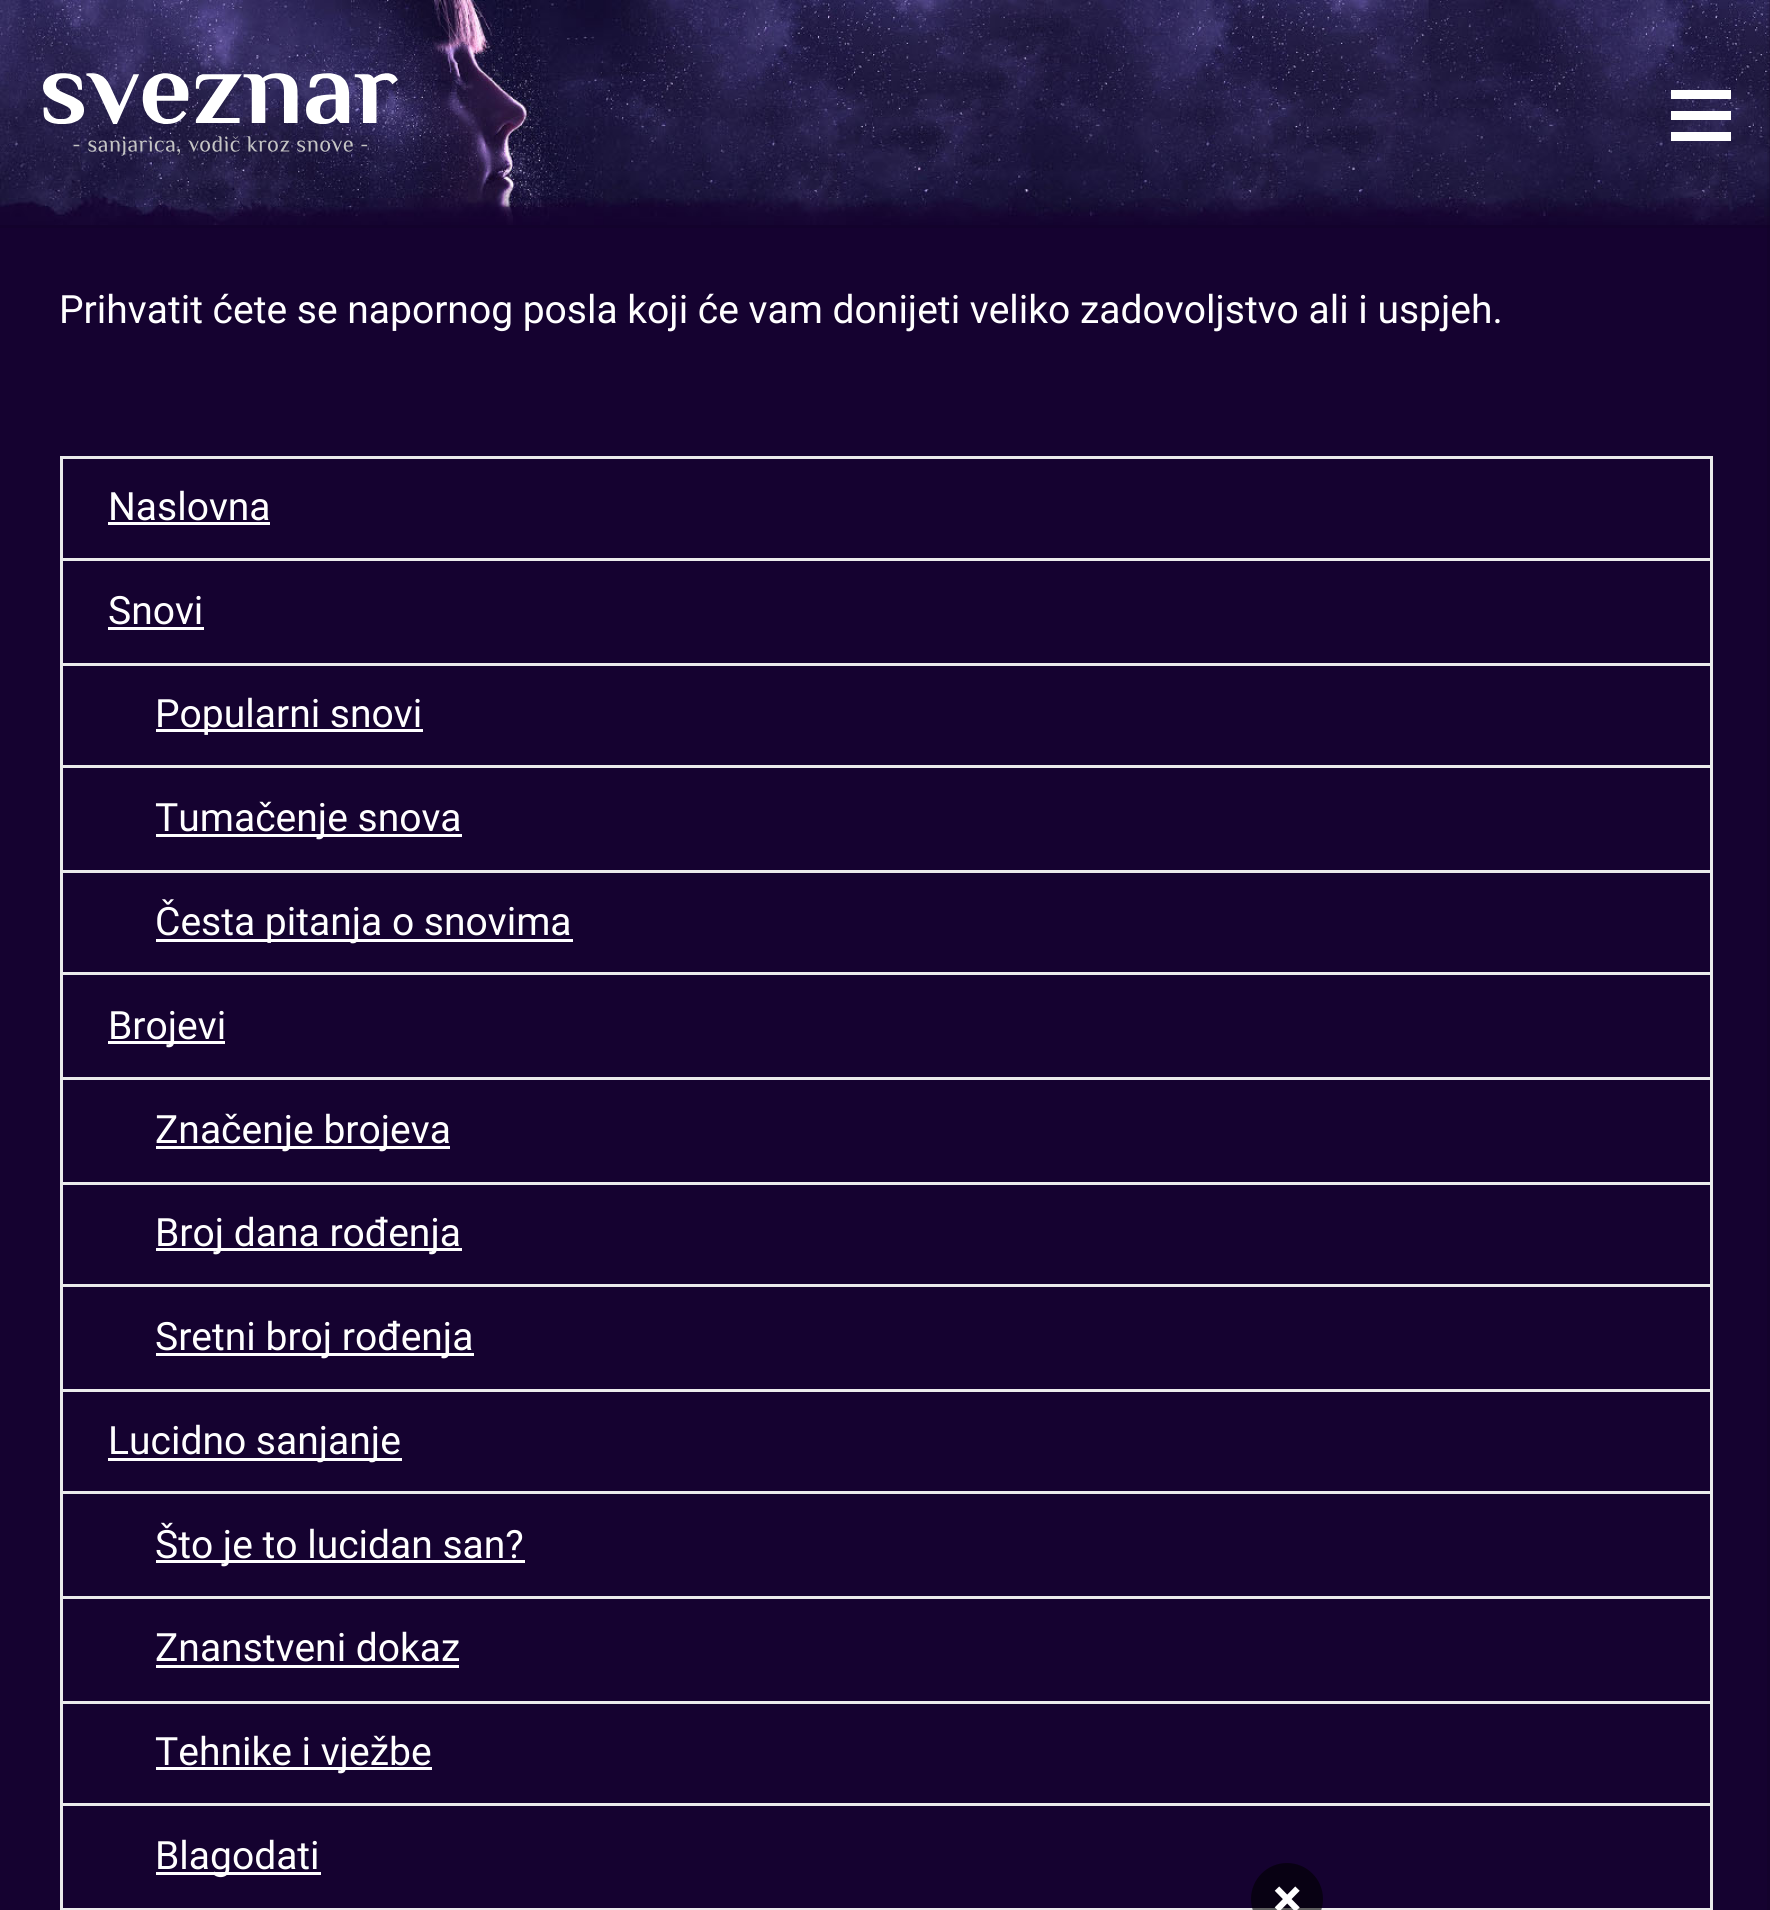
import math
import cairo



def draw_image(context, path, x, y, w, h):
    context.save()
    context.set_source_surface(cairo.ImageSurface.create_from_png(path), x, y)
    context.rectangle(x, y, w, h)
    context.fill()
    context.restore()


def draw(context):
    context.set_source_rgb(21 / 255, 2 / 255, 48 / 255)
    context.paint()
    context.set_source_rgb(19 / 255, 2 / 255, 44 / 255)
    context.rectangle(0, 225, 1770, 3)
    context.fill()
    draw_image(context, "images/1.png", 0, 0, 1770, 225)
    draw_image(context, "images/2.png", 43, 73, 355, 83)
    context.set_source_rgb(1, 1, 1)
    context.rectangle(1671, 111, 60, 9)
    context.fill()
    context.rectangle(1671, 90, 60, 9)
    context.fill()
    context.rectangle(1671, 132, 60, 9)
    context.fill()
    context.set_source_rgba(0, 0, 0, 0.08)
    context.rectangle(1767, 0, 3, 1910)
    context.fill()
    context.set_source_rgb(235 / 255, 235 / 255, 235 / 255)
    context.rectangle(60, 456, 1653, 3)
    context.fill()
    context.rectangle(1710, 456, 3, 102)
    context.fill()
    context.rectangle(60, 456, 3, 102)
    context.fill()
    context.set_source_rgb(1, 1, 1)
    context.rectangle(108, 522, 162, 3)
    context.fill()
    context.set_source_rgb(235 / 255, 235 / 255, 235 / 255)
    context.rectangle(60, 558, 1653, 3)
    context.fill()
    context.rectangle(1710, 558, 3, 105)
    context.fill()
    context.rectangle(60, 558, 3, 105)
    context.fill()
    context.set_source_rgb(1, 1, 1)
    context.rectangle(108, 627, 96, 3)
    context.fill()
    context.set_source_rgb(235 / 255, 235 / 255, 235 / 255)
    context.rectangle(60, 663, 1653, 3)
    context.fill()
    context.rectangle(1710, 663, 3, 102)
    context.fill()
    context.rectangle(60, 663, 3, 102)
    context.fill()
    context.set_source_rgb(1, 1, 1)
    context.rectangle(156, 729, 267, 3)
    context.fill()
    context.set_source_rgb(235 / 255, 235 / 255, 235 / 255)
    context.rectangle(60, 765, 1653, 3)
    context.fill()
    context.rectangle(1710, 765, 3, 105)
    context.fill()
    context.rectangle(60, 765, 3, 105)
    context.fill()
    context.set_source_rgb(1, 1, 1)
    context.rectangle(156, 834, 306, 3)
    context.fill()
    context.set_source_rgb(235 / 255, 235 / 255, 235 / 255)
    context.rectangle(60, 870, 1653, 3)
    context.fill()
    context.rectangle(1710, 870, 3, 102)
    context.fill()
    context.rectangle(60, 870, 3, 102)
    context.fill()
    context.set_source_rgb(1, 1, 1)
    context.rectangle(156, 939, 417, 3)
    context.fill()
    context.set_source_rgb(235 / 255, 235 / 255, 235 / 255)
    context.rectangle(60, 972, 1653, 3)
    context.fill()
    context.rectangle(1710, 972, 3, 105)
    context.fill()
    context.rectangle(60, 972, 3, 105)
    context.fill()
    context.set_source_rgb(1, 1, 1)
    context.rectangle(108, 1041, 117, 3)
    context.fill()
    context.set_source_rgb(235 / 255, 235 / 255, 235 / 255)
    context.rectangle(60, 1077, 1653, 3)
    context.fill()
    context.rectangle(1710, 1077, 3, 105)
    context.fill()
    context.rectangle(60, 1077, 3, 105)
    context.fill()
    context.set_source_rgb(1, 1, 1)
    context.rectangle(156, 1146, 294, 3)
    context.fill()
    context.set_source_rgb(235 / 255, 235 / 255, 235 / 255)
    context.rectangle(60, 1182, 1653, 3)
    context.fill()
    context.rectangle(1710, 1182, 3, 102)
    context.fill()
    context.rectangle(60, 1182, 3, 102)
    context.fill()
    context.set_source_rgb(1, 1, 1)
    context.rectangle(156, 1248, 306, 3)
    context.fill()
    context.set_source_rgb(235 / 255, 235 / 255, 235 / 255)
    context.rectangle(60, 1284, 1653, 3)
    context.fill()
    context.rectangle(1710, 1284, 3, 105)
    context.fill()
    context.rectangle(60, 1284, 3, 105)
    context.fill()
    context.set_source_rgb(1, 1, 1)
    context.rectangle(156, 1353, 318, 3)
    context.fill()
    context.set_source_rgb(235 / 255, 235 / 255, 235 / 255)
    context.rectangle(60, 1389, 1653, 3)
    context.fill()
    context.rectangle(1710, 1389, 3, 102)
    context.fill()
    context.rectangle(60, 1389, 3, 102)
    context.fill()
    context.set_source_rgb(1, 1, 1)
    context.rectangle(108, 1458, 294, 3)
    context.fill()
    context.set_source_rgb(235 / 255, 235 / 255, 235 / 255)
    context.rectangle(60, 1491, 1653, 3)
    context.fill()
    context.rectangle(1710, 1491, 3, 105)
    context.fill()
    context.rectangle(60, 1491, 3, 105)
    context.fill()
    context.set_source_rgb(1, 1, 1)
    context.rectangle(156, 1560, 369, 3)
    context.fill()
    context.set_source_rgb(235 / 255, 235 / 255, 235 / 255)
    context.rectangle(60, 1596, 1653, 3)
    context.fill()
    context.rectangle(1710, 1596, 3, 105)
    context.fill()
    context.rectangle(60, 1596, 3, 105)
    context.fill()
    context.set_source_rgb(1, 1, 1)
    context.rectangle(156, 1665, 303, 3)
    context.fill()
    context.set_source_rgb(235 / 255, 235 / 255, 235 / 255)
    context.rectangle(60, 1701, 1653, 3)
    context.fill()
    context.rectangle(1710, 1701, 3, 102)
    context.fill()
    context.rectangle(60, 1701, 3, 102)
    context.fill()
    context.set_source_rgb(1, 1, 1)
    context.rectangle(156, 1767, 276, 3)
    context.fill()
    context.set_source_rgb(235 / 255, 235 / 255, 235 / 255)
    context.rectangle(60, 1803, 1653, 3)
    context.fill()
    context.rectangle(1710, 1803, 3, 105)
    context.fill()
    context.rectangle(60, 1803, 3, 105)
    context.fill()
    context.set_source_rgb(1, 1, 1)
    context.rectangle(156, 1872, 165, 3)
    context.fill()
    context.set_source_rgb(235 / 255, 235 / 255, 235 / 255)
    context.rectangle(60, 1908, 1653, 2)
    context.fill()
    context.set_source_rgba(0, 0, 0, 0.6)
    context.arc(1287, 1899, 36, 0, 2 * math.pi)
    context.fill()
    context.select_font_face("Roboto")
    context.set_font_size(39)
    context.set_source_rgb(1, 1, 1)
    context.move_to(59, 323)
    context.show_text("Prihvatit ćete se napornog posla koji će vam donijeti veliko zadovoljstvo ali i uspjeh.")
    context.move_to(108, 520)
    context.show_text("Naslovna")
    context.move_to(108, 624)
    context.show_text("Snovi")
    context.move_to(155, 727)
    context.show_text("Popularni snovi")
    context.move_to(155, 831)
    context.show_text("Tumačenje snova")
    context.move_to(155, 935)
    context.show_text("Česta pitanja o snovima")
    context.move_to(108, 1039)
    context.show_text("Brojevi")
    context.move_to(155, 1143)
    context.show_text("Značenje brojeva")
    context.move_to(155, 1246)
    context.show_text("Broj dana rođenja")
    context.move_to(155, 1350)
    context.show_text("Sretni broj rođenja")
    context.move_to(108, 1454)
    context.show_text("Lucidno sanjanje")
    context.move_to(155, 1558)
    context.show_text("Što je to lucidan san?")
    context.move_to(155, 1661)
    context.show_text("Znanstveni dokaz")
    context.move_to(155, 1765)
    context.show_text("Tehnike i vježbe")
    context.move_to(155, 1869)
    context.show_text("Blagodati")
    context.select_font_face("Roboto", cairo.FontSlant.NORMAL, cairo.FontWeight.BOLD)
    context.set_font_size(54)
    context.move_to(1273, 1917)
    context.show_text("×")


surface = cairo.ImageSurface(cairo.Format.RGB24, 1770, 1910)
context = cairo.Context(surface)
options = cairo.FontOptions()
options.set_hint_metrics(cairo.HintMetrics.OFF)
options.set_hint_style(cairo.HintStyle.NONE)
context.set_font_options(options)
context.set_miter_limit(4)
draw(context)
surface.write_to_png("out.png")
